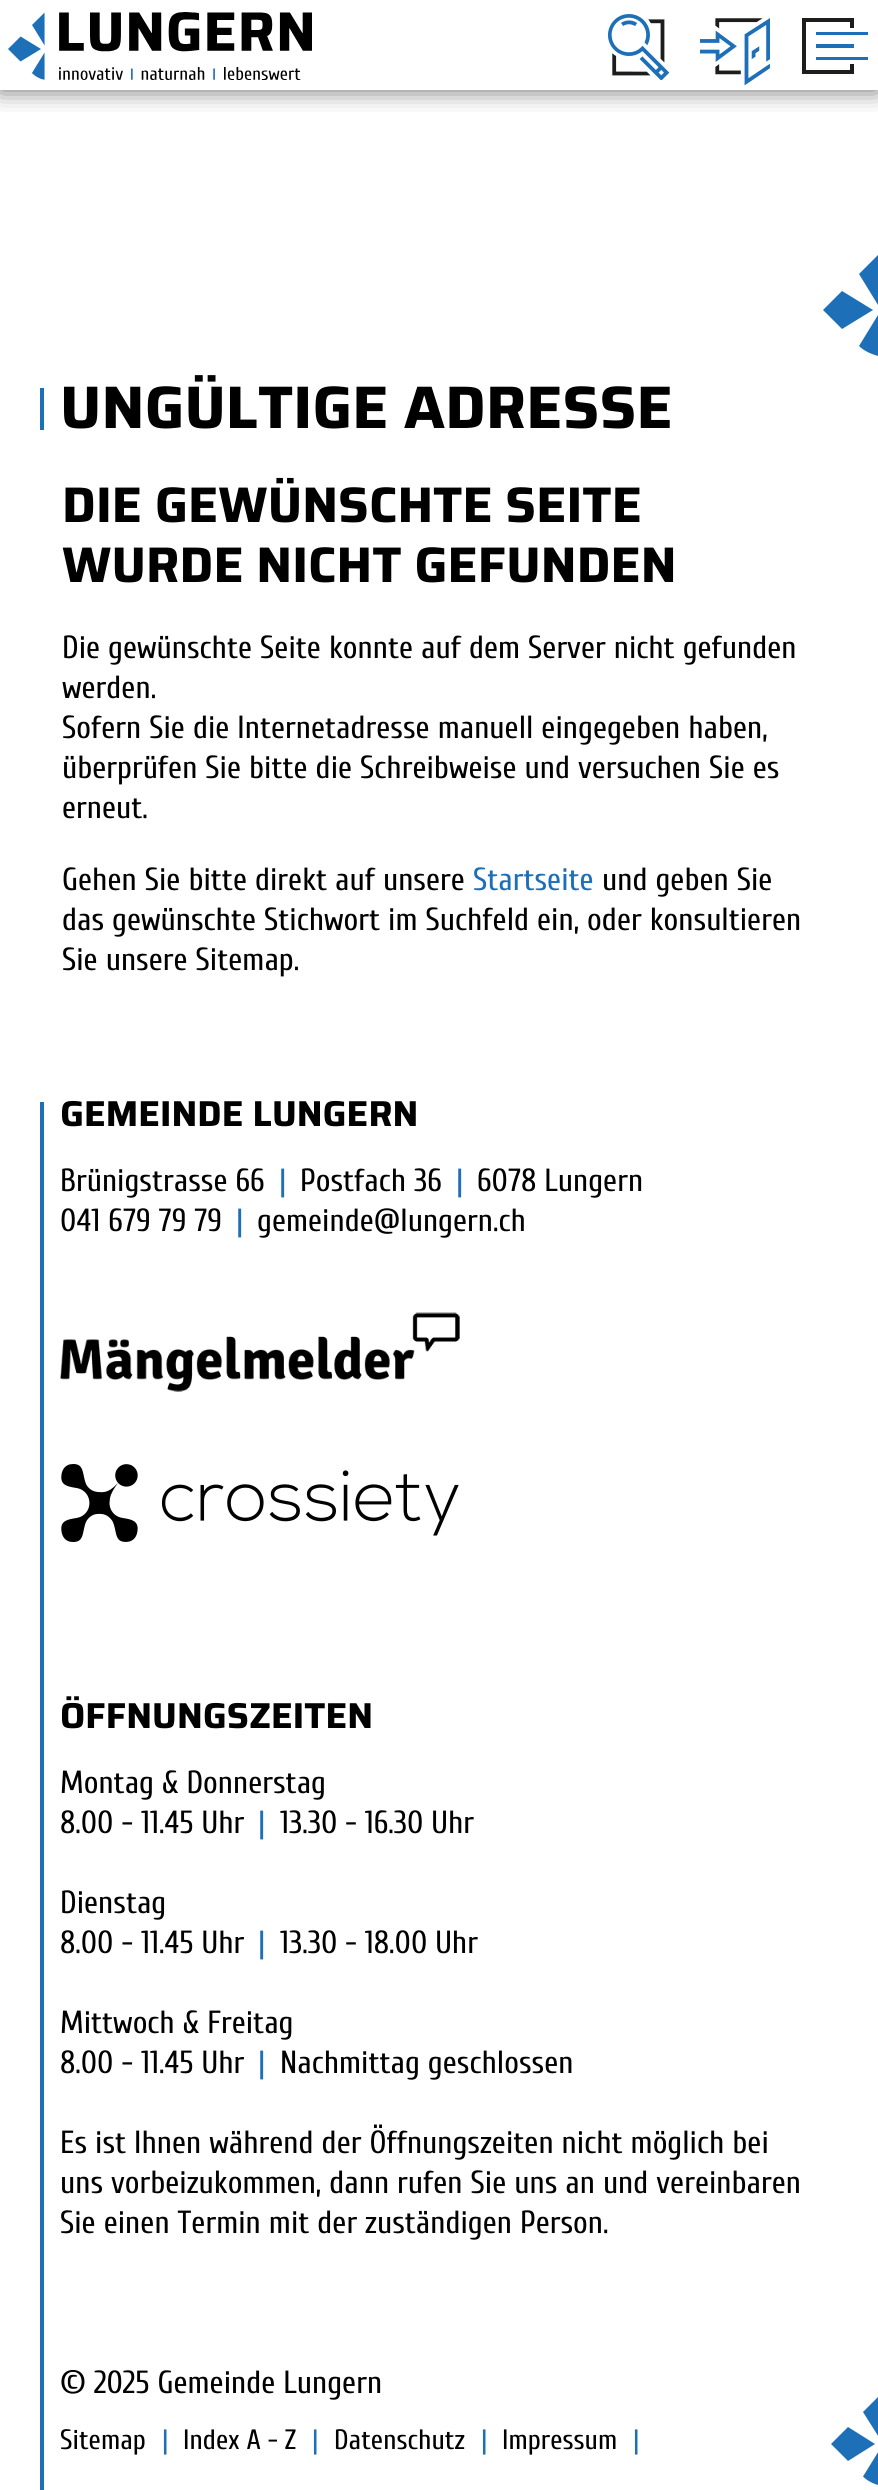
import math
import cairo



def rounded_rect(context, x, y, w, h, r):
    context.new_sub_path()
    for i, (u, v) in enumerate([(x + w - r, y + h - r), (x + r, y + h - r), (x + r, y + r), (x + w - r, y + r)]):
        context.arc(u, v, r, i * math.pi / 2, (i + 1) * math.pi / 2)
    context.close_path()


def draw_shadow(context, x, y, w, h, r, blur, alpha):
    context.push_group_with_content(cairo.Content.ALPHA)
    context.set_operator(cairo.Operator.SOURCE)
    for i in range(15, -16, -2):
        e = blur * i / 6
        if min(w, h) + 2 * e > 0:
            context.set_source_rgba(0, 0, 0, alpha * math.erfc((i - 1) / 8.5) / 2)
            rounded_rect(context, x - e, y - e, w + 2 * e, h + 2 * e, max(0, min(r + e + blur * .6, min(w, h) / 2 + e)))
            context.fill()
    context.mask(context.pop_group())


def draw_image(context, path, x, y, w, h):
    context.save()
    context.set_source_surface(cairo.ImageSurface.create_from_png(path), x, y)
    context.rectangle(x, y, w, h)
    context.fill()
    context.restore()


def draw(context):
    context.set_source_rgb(1, 1, 1)
    context.paint()
    context.save()
    context.rectangle(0, 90, 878, 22)
    context.clip()
    context.set_source_rgb(0, 0, 0)
    draw_shadow(context, 0, 0, 878, 90, 0, 12, 0.6)
    context.restore()
    draw_image(context, "images/1.png", 8, 12, 304, 68)
    draw_image(context, "images/2.png", 608, 14, 62, 66)
    draw_image(context, "images/3.png", 700, 18, 70, 68)
    context.set_source_rgb(29 / 255, 29 / 255, 27 / 255)
    context.new_path()
    context.move_to(802, 18)
    context.line_to(802, 74)
    context.line_to(854, 74)
    context.line_to(854, 64)
    context.line_to(850, 64)
    context.line_to(850, 70)
    context.line_to(806, 70)
    context.line_to(806, 22)
    context.line_to(850, 22)
    context.line_to(850, 28)
    context.line_to(854, 28)
    context.line_to(854, 18)
    context.close_path()
    context.fill()
    context.set_source_rgb(29 / 255, 112 / 255, 183 / 255)
    context.rectangle(816, 32, 52, 3)
    context.fill()
    context.rectangle(816, 44, 38, 4)
    context.fill()
    context.rectangle(816, 57, 52, 3)
    context.fill()
    context.new_path()
    context.move_to(873, 310)
    context.line_to(842, 291)
    context.line_to(823, 310)
    context.line_to(842, 329)
    context.close_path()
    context.fill()
    context.new_path()
    context.move_to(878, 255)
    context.line_to(859, 274)
    context.line_to(878, 305)
    context.close_path()
    context.fill()
    context.new_path()
    context.move_to(878, 315)
    context.line_to(859, 346)
    context.curve_to(864, 351, 871, 354, 878, 356)
    context.close_path()
    context.fill()
    context.rectangle(40, 388, 4, 42)
    context.fill()
    context.rectangle(40, 1102, 4, 1388)
    context.fill()
    draw_image(context, "images/4.png", 60, 1312, 400, 80)
    draw_image(context, "images/5.png", 61, 1464, 398, 78)
    context.new_path()
    context.move_to(875, 2444)
    context.line_to(848, 2427)
    context.line_to(831, 2444)
    context.line_to(848, 2461)
    context.close_path()
    context.fill()
    context.new_path()
    context.move_to(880, 2395)
    context.line_to(863, 2412)
    context.line_to(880, 2439)
    context.close_path()
    context.fill()
    context.new_path()
    context.move_to(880, 2449)
    context.line_to(863, 2476.5)
    context.curve_to(867.5, 2481, 873.5, 2484, 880, 2485.5)
    context.close_path()
    context.fill()
    context.select_font_face("Saira", cairo.FontSlant.NORMAL, cairo.FontWeight.BOLD)
    context.set_font_size(60)
    context.set_source_rgb(0, 0, 0)
    context.move_to(60, 428)
    context.show_text("UNGÜLTIGE ADRESSE")
    context.set_font_size(50)
    context.move_to(62, 522)
    context.show_text("DIE GEWÜNSCHTE SEITE")
    context.move_to(62, 582)
    context.show_text("WURDE NICHT GEFUNDEN")
    context.select_font_face("Cuprum")
    context.set_font_size(32)
    context.move_to(62, 658)
    context.show_text("Die gewünschte Seite konnte auf dem Server nicht gefunden")
    context.move_to(62, 698)
    context.show_text("werden.")
    context.move_to(62, 738)
    context.show_text("Sofern Sie die Internetadresse manuell eingegeben haben,")
    context.move_to(62, 778)
    context.show_text("überprüfen Sie bitte die Schreibweise und versuchen Sie es")
    context.move_to(62, 818)
    context.show_text("erneut.")
    context.move_to(62, 890)
    context.show_text("Gehen Sie bitte direkt auf unsere")
    context.set_source_rgb(29 / 255, 112 / 255, 183 / 255)
    context.move_to(473, 890)
    context.show_text("Startseite")
    context.set_source_rgb(0, 0, 0)
    context.move_to(602, 890)
    context.show_text("und geben Sie")
    context.move_to(62, 930)
    context.show_text("das gewünschte Stichwort im Suchfeld ein, oder konsultieren")
    context.move_to(62, 970)
    context.show_text("Sie unsere Sitemap.")
    context.select_font_face("Saira", cairo.FontSlant.NORMAL, cairo.FontWeight.BOLD)
    context.set_font_size(36)
    context.move_to(60, 1126)
    context.show_text("GEMEINDE LUNGERN")
    context.select_font_face("Cuprum")
    context.set_font_size(32)
    context.move_to(60, 1191)
    context.show_text("Brünigstrasse 66")
    context.set_source_rgb(29 / 255, 112 / 255, 183 / 255)
    context.move_to(279, 1191)
    context.show_text("|")
    context.set_source_rgb(0, 0, 0)
    context.move_to(300, 1191)
    context.show_text("Postfach 36")
    context.set_source_rgb(29 / 255, 112 / 255, 183 / 255)
    context.move_to(456, 1191)
    context.show_text("|")
    context.set_source_rgb(0, 0, 0)
    context.move_to(477, 1191)
    context.show_text("6078 Lungern")
    context.move_to(60, 1231)
    context.show_text("041 679 79 79")
    context.set_source_rgb(29 / 255, 112 / 255, 183 / 255)
    context.move_to(236, 1231)
    context.show_text("|")
    context.set_source_rgb(0, 0, 0)
    context.move_to(257, 1231)
    context.show_text("gemeinde@lungern.ch")
    context.select_font_face("Saira", cairo.FontSlant.NORMAL, cairo.FontWeight.BOLD)
    context.set_font_size(36)
    context.move_to(60, 1728)
    context.show_text("ÖFFNUNGSZEITEN")
    context.select_font_face("Cuprum")
    context.set_font_size(32)
    context.move_to(60, 1793)
    context.show_text("Montag & Donnerstag")
    context.move_to(60, 1833)
    context.show_text("8.00 - 11.45 Uhr")
    context.set_source_rgb(29 / 255, 112 / 255, 183 / 255)
    context.move_to(258, 1833)
    context.show_text("|")
    context.set_source_rgb(0, 0, 0)
    context.move_to(280, 1833)
    context.show_text("13.30 - 16.30 Uhr")
    context.move_to(60, 1913)
    context.show_text("Dienstag")
    context.move_to(60, 1953)
    context.show_text("8.00 - 11.45 Uhr")
    context.set_source_rgb(29 / 255, 112 / 255, 183 / 255)
    context.move_to(258, 1953)
    context.show_text("|")
    context.set_source_rgb(0, 0, 0)
    context.move_to(280, 1953)
    context.show_text("13.30 - 18.00 Uhr")
    context.move_to(60, 2033)
    context.show_text("Mittwoch & Freitag")
    context.move_to(60, 2073)
    context.show_text("8.00 - 11.45 Uhr")
    context.set_source_rgb(29 / 255, 112 / 255, 183 / 255)
    context.move_to(258, 2073)
    context.show_text("|")
    context.set_source_rgb(0, 0, 0)
    context.move_to(280, 2073)
    context.show_text("Nachmittag geschlossen")
    context.move_to(60, 2153)
    context.show_text("Es ist Ihnen während der Öffnungszeiten nicht möglich bei")
    context.move_to(60, 2193)
    context.show_text("uns vorbeizukommen, dann rufen Sie uns an und vereinbaren")
    context.move_to(60, 2233)
    context.show_text("Sie einen Termin mit der zuständigen Person.")
    context.move_to(60, 2393)
    context.show_text("© 2025 Gemeinde Lungern")
    context.set_font_size(28)
    context.move_to(60, 2449)
    context.show_text("Sitemap")
    context.set_source_rgb(29 / 255, 112 / 255, 183 / 255)
    context.move_to(162, 2449)
    context.show_text("|")
    context.set_source_rgb(0, 0, 0)
    context.move_to(183, 2449)
    context.show_text("Index A - Z")
    context.set_source_rgb(29 / 255, 112 / 255, 183 / 255)
    context.move_to(312, 2449)
    context.show_text("|")
    context.set_source_rgb(0, 0, 0)
    context.move_to(334, 2449)
    context.show_text("Datenschutz")
    context.set_source_rgb(29 / 255, 112 / 255, 183 / 255)
    context.move_to(481, 2449)
    context.show_text("|")
    context.set_source_rgb(0, 0, 0)
    context.move_to(502, 2449)
    context.show_text("Impressum")
    context.set_source_rgb(29 / 255, 112 / 255, 183 / 255)
    context.move_to(633, 2449)
    context.show_text("|")


surface = cairo.ImageSurface(cairo.Format.RGB24, 878, 2490)
context = cairo.Context(surface)
options = cairo.FontOptions()
options.set_hint_metrics(cairo.HintMetrics.OFF)
options.set_hint_style(cairo.HintStyle.NONE)
context.set_font_options(options)
context.set_miter_limit(4)
draw(context)
surface.write_to_png("out.png")
